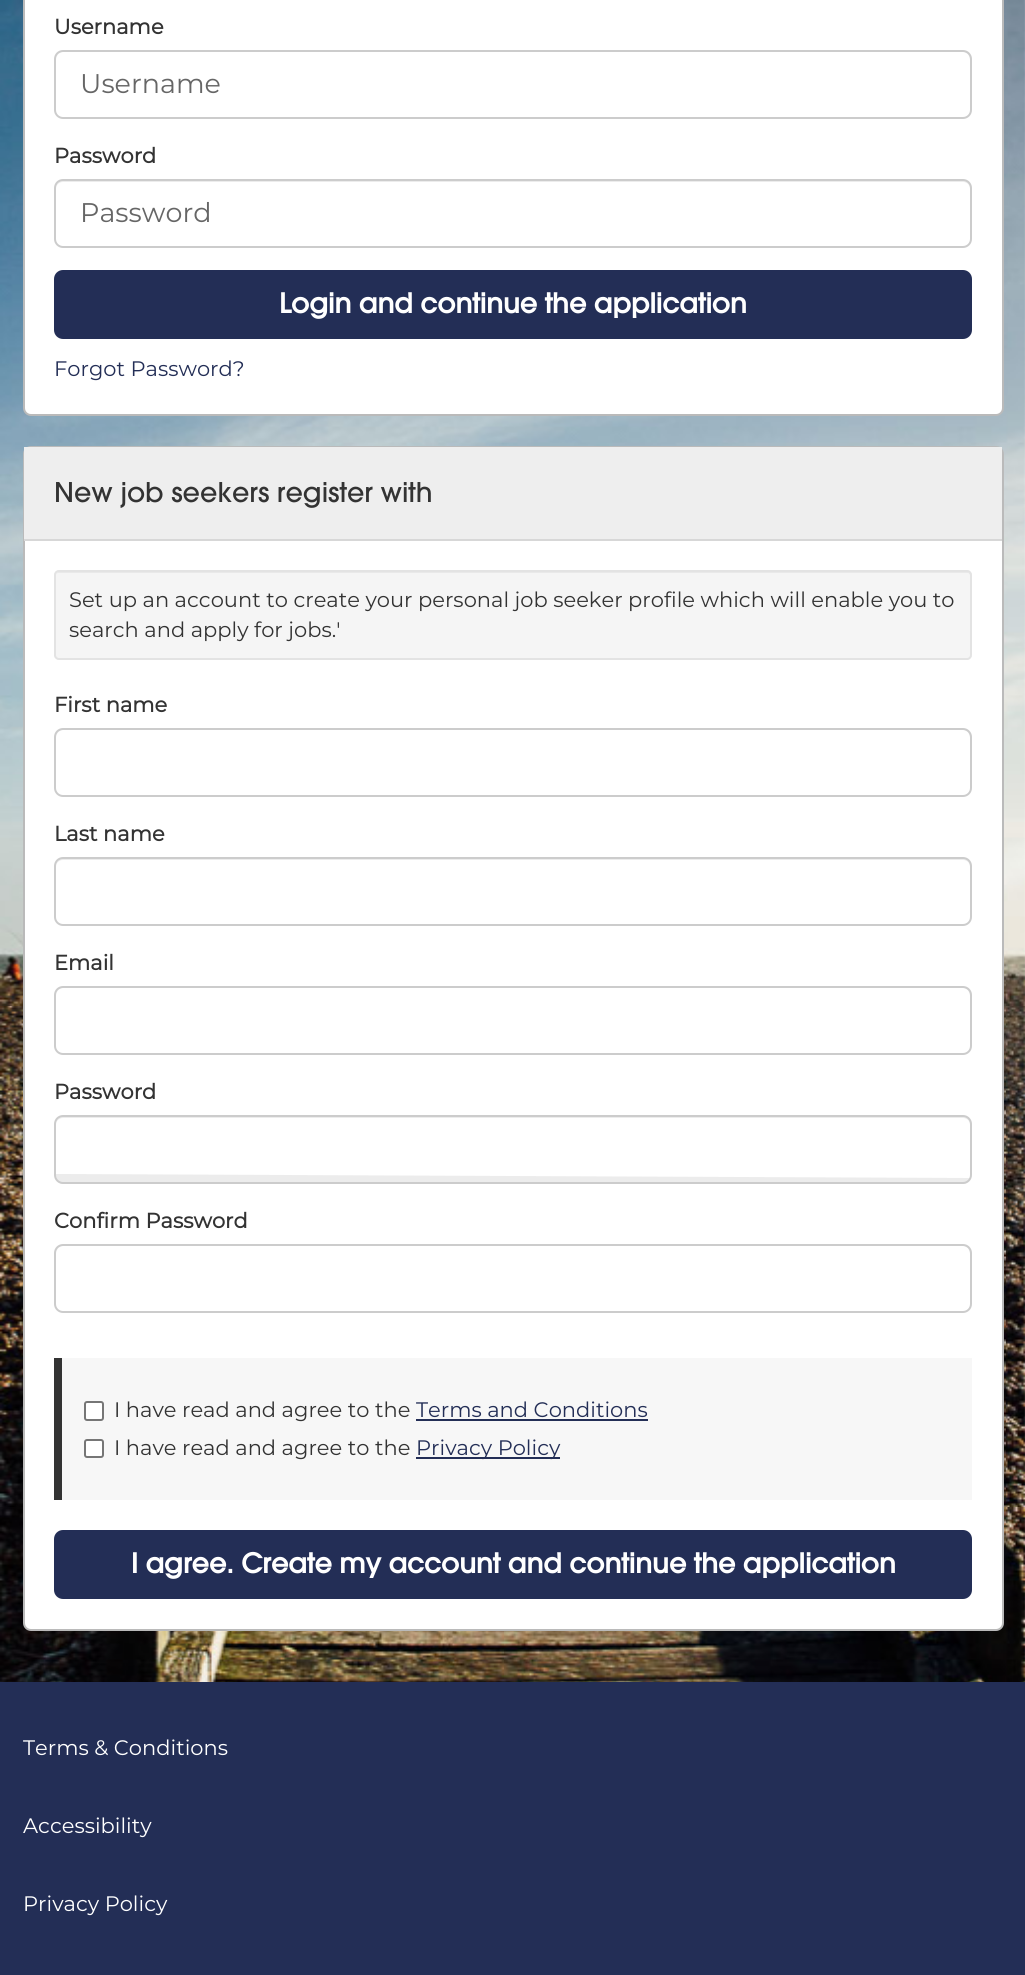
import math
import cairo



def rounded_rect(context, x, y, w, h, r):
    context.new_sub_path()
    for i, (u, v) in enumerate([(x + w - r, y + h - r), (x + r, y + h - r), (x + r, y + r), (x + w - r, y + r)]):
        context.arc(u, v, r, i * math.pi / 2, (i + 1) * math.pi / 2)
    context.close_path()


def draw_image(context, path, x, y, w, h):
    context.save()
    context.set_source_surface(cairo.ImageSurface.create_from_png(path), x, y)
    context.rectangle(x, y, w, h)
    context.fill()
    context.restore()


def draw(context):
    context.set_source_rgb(1, 1, 1)
    context.paint()
    draw_image(context, "images/1.png", 0, 0, 1025, 1682)
    context.set_source_rgb(1, 1, 1)
    rounded_rect(context, 24, -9, 979, 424, 7)
    context.fill_preserve()
    context.set_source_rgb(186 / 255, 186 / 255, 186 / 255)
    context.stroke()
    context.set_source_rgb(236 / 255, 236 / 255, 236 / 255)
    context.new_path()
    context.move_to(63, 52)
    context.line_to(963, 52)
    context.curve_to(967, 52, 970, 56, 970, 60)
    context.line_to(970, 111)
    context.line_to(970, 114)
    context.curve_to(970, 112, 971, 111, 971, 109)
    context.line_to(971, 59)
    context.curve_to(971, 55, 967, 51, 963, 51)
    context.line_to(64, 51)
    context.curve_to(60, 51, 56, 55, 56, 59)
    context.line_to(56, 60)
    context.curve_to(56, 56, 59, 52, 63, 52)
    context.close_path()
    context.fill()
    rounded_rect(context, 55, 51, 916, 67, 8)
    context.set_source_rgb(204 / 255, 204 / 255, 204 / 255)
    context.stroke()
    context.set_source_rgb(236 / 255, 236 / 255, 236 / 255)
    context.new_path()
    context.move_to(63, 182)
    context.line_to(963, 182)
    context.curve_to(967, 182, 970, 185, 970, 189)
    context.line_to(970, 240)
    context.line_to(970, 242)
    context.curve_to(970, 241, 971, 240, 971, 238)
    context.line_to(971, 188)
    context.curve_to(971, 184, 967, 180, 963, 180)
    context.line_to(64, 180)
    context.curve_to(60, 180, 56, 184, 56, 188)
    context.line_to(56, 189)
    context.curve_to(56, 185, 59, 182, 63, 182)
    context.close_path()
    context.fill()
    rounded_rect(context, 55, 180, 916, 67, 8)
    context.set_source_rgb(204 / 255, 204 / 255, 204 / 255)
    context.stroke()
    context.set_source_rgb(35 / 255, 46 / 255, 86 / 255)
    rounded_rect(context, 55, 271, 916, 67, 8)
    context.fill_preserve()
    context.stroke()
    context.set_source_rgb(1, 1, 1)
    rounded_rect(context, 24, 447, 979, 1183, 7)
    context.fill_preserve()
    context.set_source_rgb(186 / 255, 186 / 255, 186 / 255)
    context.stroke()
    context.set_source_rgb(238 / 255, 238 / 255, 238 / 255)
    context.rectangle(24, 447, 978, 92)
    context.fill()
    context.set_source_rgb(215 / 255, 215 / 255, 215 / 255)
    context.rectangle(24, 539, 978, 2)
    context.fill()
    context.set_source_rgb(245 / 255, 245 / 255, 245 / 255)
    rounded_rect(context, 54, 570, 918, 90, 5)
    context.fill()
    context.set_source_rgb(233 / 255, 233 / 255, 233 / 255)
    context.new_path()
    context.move_to(58, 573)
    context.line_to(968, 573)
    context.curve_to(969, 573, 970, 574, 970, 576)
    context.line_to(970, 658)
    context.line_to(971, 656)
    context.line_to(971, 575)
    context.curve_to(971, 573, 970, 572, 968, 572)
    context.line_to(59, 572)
    context.curve_to(57, 572, 56, 574, 56, 576)
    context.curve_to(56, 574, 57, 573, 58, 573)
    context.close_path()
    context.fill()
    rounded_rect(context, 55, 571, 916, 88, 4)
    context.set_source_rgb(227 / 255, 227 / 255, 227 / 255)
    context.stroke()
    context.set_source_rgb(236 / 255, 236 / 255, 236 / 255)
    context.new_path()
    context.move_to(63, 730)
    context.line_to(963, 730)
    context.curve_to(967, 730, 970, 734, 970, 738)
    context.line_to(970, 789)
    context.line_to(970, 792)
    context.curve_to(970, 790, 971, 789, 971, 787)
    context.line_to(971, 737)
    context.curve_to(971, 733, 967, 729, 963, 729)
    context.line_to(64, 729)
    context.curve_to(60, 729, 56, 733, 56, 737)
    context.line_to(56, 738)
    context.curve_to(56, 734, 59, 730, 63, 730)
    context.close_path()
    context.fill()
    rounded_rect(context, 55, 729, 916, 67, 8)
    context.set_source_rgb(204 / 255, 204 / 255, 204 / 255)
    context.stroke()
    context.set_source_rgb(236 / 255, 236 / 255, 236 / 255)
    context.new_path()
    context.move_to(63, 860)
    context.line_to(963, 860)
    context.curve_to(967, 860, 970, 863, 970, 867)
    context.line_to(970, 918)
    context.line_to(970, 920)
    context.curve_to(970, 919, 971, 918, 971, 916)
    context.line_to(971, 866)
    context.curve_to(971, 862, 967, 858, 963, 858)
    context.line_to(64, 858)
    context.curve_to(60, 858, 56, 862, 56, 866)
    context.line_to(56, 867)
    context.curve_to(56, 863, 59, 860, 63, 860)
    context.close_path()
    context.fill()
    rounded_rect(context, 55, 858, 916, 67, 8)
    context.set_source_rgb(204 / 255, 204 / 255, 204 / 255)
    context.stroke()
    context.set_source_rgb(236 / 255, 236 / 255, 236 / 255)
    context.new_path()
    context.move_to(63, 988)
    context.line_to(963, 988)
    context.curve_to(967, 988, 970, 992, 970, 996)
    context.line_to(970, 1047)
    context.line_to(970, 1050)
    context.curve_to(970, 1048, 971, 1047, 971, 1045)
    context.line_to(971, 995)
    context.curve_to(971, 991, 967, 987, 963, 987)
    context.line_to(64, 987)
    context.curve_to(60, 987, 56, 991, 56, 995)
    context.line_to(56, 996)
    context.curve_to(56, 992, 59, 988, 63, 988)
    context.close_path()
    context.fill()
    rounded_rect(context, 55, 987, 916, 67, 8)
    context.set_source_rgb(204 / 255, 204 / 255, 204 / 255)
    context.stroke()
    context.set_source_rgb(236 / 255, 236 / 255, 236 / 255)
    context.new_path()
    context.move_to(63, 1118)
    context.line_to(963, 1118)
    context.curve_to(967, 1118, 970, 1121, 970, 1125)
    context.line_to(970, 1176)
    context.line_to(970, 1178)
    context.curve_to(969, 1182, 966, 1184, 963, 1184)
    context.line_to(63, 1184)
    context.curve_to(59, 1184, 56, 1180, 56, 1176)
    context.line_to(56, 1174)
    context.line_to(970, 1178)
    context.curve_to(970, 1177, 971, 1176, 971, 1174)
    context.line_to(971, 1124)
    context.curve_to(971, 1120, 967, 1116, 963, 1116)
    context.line_to(64, 1116)
    context.curve_to(60, 1116, 56, 1120, 56, 1124)
    context.line_to(56, 1125)
    context.curve_to(56, 1121, 59, 1118, 63, 1118)
    context.close_path()
    context.fill()
    rounded_rect(context, 55, 1116, 916, 67, 8)
    context.set_source_rgb(204 / 255, 204 / 255, 204 / 255)
    context.stroke()
    context.set_source_rgb(236 / 255, 236 / 255, 236 / 255)
    context.new_path()
    context.move_to(63, 1246)
    context.line_to(963, 1246)
    context.curve_to(967, 1246, 970, 1250, 970, 1254)
    context.line_to(970, 1305)
    context.line_to(970, 1308)
    context.curve_to(970, 1306, 971, 1305, 971, 1303)
    context.line_to(971, 1253)
    context.curve_to(971, 1249, 967, 1245, 963, 1245)
    context.line_to(64, 1245)
    context.curve_to(60, 1245, 56, 1249, 56, 1253)
    context.line_to(56, 1254)
    context.curve_to(56, 1250, 59, 1246, 63, 1246)
    context.close_path()
    context.fill()
    rounded_rect(context, 55, 1245, 916, 67, 8)
    context.set_source_rgb(204 / 255, 204 / 255, 204 / 255)
    context.stroke()
    context.set_source_rgb(247 / 255, 247 / 255, 247 / 255)
    context.rectangle(62, 1358, 910, 142)
    context.fill()
    context.set_source_rgb(51 / 255, 51 / 255, 51 / 255)
    context.rectangle(54, 1358, 8, 142)
    context.fill()
    context.set_source_rgb(1, 1, 1)
    rounded_rect(context, 85, 1402, 18, 18, 2)
    context.fill_preserve()
    context.set_source_rgb(118 / 255, 118 / 255, 118 / 255)
    context.stroke()
    context.set_source_rgb(35 / 255, 46 / 255, 86 / 255)
    context.rectangle(416, 1419, 232, 2)
    context.fill()
    context.set_source_rgb(1, 1, 1)
    rounded_rect(context, 85, 1440, 18, 17, 2)
    context.fill_preserve()
    context.set_source_rgb(118 / 255, 118 / 255, 118 / 255)
    context.stroke()
    context.set_source_rgb(35 / 255, 46 / 255, 86 / 255)
    context.rectangle(416, 1457, 144, 2)
    context.fill()
    rounded_rect(context, 55, 1531, 916, 67, 8)
    context.fill_preserve()
    context.stroke()
    context.rectangle(0, 1682, 1025, 293)
    context.fill()
    context.select_font_face("Montserrat", cairo.FontSlant.NORMAL, cairo.FontWeight.BOLD)
    context.set_font_size(21)
    context.set_source_rgb(51 / 255, 51 / 255, 51 / 255)
    context.move_to(54, 34)
    context.show_text("Username")
    context.select_font_face("Montserrat")
    context.set_font_size(27)
    context.set_source_rgb(102 / 255, 102 / 255, 102 / 255)
    context.move_to(80, 93)
    context.show_text("Username")
    context.select_font_face("Montserrat", cairo.FontSlant.NORMAL, cairo.FontWeight.BOLD)
    context.set_font_size(21)
    context.set_source_rgb(51 / 255, 51 / 255, 51 / 255)
    context.move_to(54, 163)
    context.show_text("Password")
    context.select_font_face("Montserrat")
    context.set_font_size(27)
    context.set_source_rgb(102 / 255, 102 / 255, 102 / 255)
    context.move_to(80, 222)
    context.show_text("Password")
    context.select_font_face("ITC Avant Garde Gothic", cairo.FontSlant.NORMAL, cairo.FontWeight.BOLD)
    context.set_source_rgb(1, 1, 1)
    context.move_to(279, 313)
    context.show_text("Login and continue the application")
    context.select_font_face("Montserrat")
    context.set_font_size(21)
    context.set_source_rgb(35 / 255, 46 / 255, 86 / 255)
    context.move_to(54, 376)
    context.show_text("Forgot Password?")
    context.select_font_face("ITC Avant Garde Gothic Medium")
    context.set_font_size(27)
    context.set_source_rgb(51 / 255, 51 / 255, 51 / 255)
    context.move_to(54, 502)
    context.show_text("New job seekers register with")
    context.select_font_face("Montserrat")
    context.set_font_size(21)
    context.move_to(69, 607)
    context.show_text("Set up an account to create your personal job seeker profile which will enable you to")
    context.move_to(69, 637)
    context.show_text("search and apply for jobs.'")
    context.select_font_face("Montserrat", cairo.FontSlant.NORMAL, cairo.FontWeight.BOLD)
    context.move_to(54, 712)
    context.show_text("First name")
    context.move_to(54, 841)
    context.show_text("Last name")
    context.move_to(54, 970)
    context.show_text("Email")
    context.move_to(54, 1099)
    context.show_text("Password")
    context.move_to(54, 1228)
    context.show_text("Confirm Password")
    context.select_font_face("Montserrat")
    context.move_to(114, 1417)
    context.show_text("I have read and agree to the")
    context.set_source_rgb(35 / 255, 46 / 255, 86 / 255)
    context.move_to(416, 1417)
    context.show_text("Terms and Conditions")
    context.set_source_rgb(51 / 255, 51 / 255, 51 / 255)
    context.move_to(114, 1455)
    context.show_text("I have read and agree to the")
    context.set_source_rgb(35 / 255, 46 / 255, 86 / 255)
    context.move_to(416, 1455)
    context.show_text("Privacy Policy")
    context.select_font_face("ITC Avant Garde Gothic", cairo.FontSlant.NORMAL, cairo.FontWeight.BOLD)
    context.set_font_size(27)
    context.set_source_rgb(1, 1, 1)
    context.move_to(131, 1573)
    context.show_text("I agree. Create my account and continue the application")
    context.select_font_face("Montserrat")
    context.set_font_size(21)
    context.move_to(23, 1755)
    context.show_text("Terms & Conditions")
    context.move_to(23, 1833)
    context.show_text("Accessibility")
    context.move_to(23, 1911)
    context.show_text("Privacy Policy")


surface = cairo.ImageSurface(cairo.Format.RGB24, 1025, 1975)
context = cairo.Context(surface)
options = cairo.FontOptions()
options.set_hint_metrics(cairo.HintMetrics.OFF)
options.set_hint_style(cairo.HintStyle.NONE)
context.set_font_options(options)
context.set_miter_limit(4)
draw(context)
surface.write_to_png("out.png")
